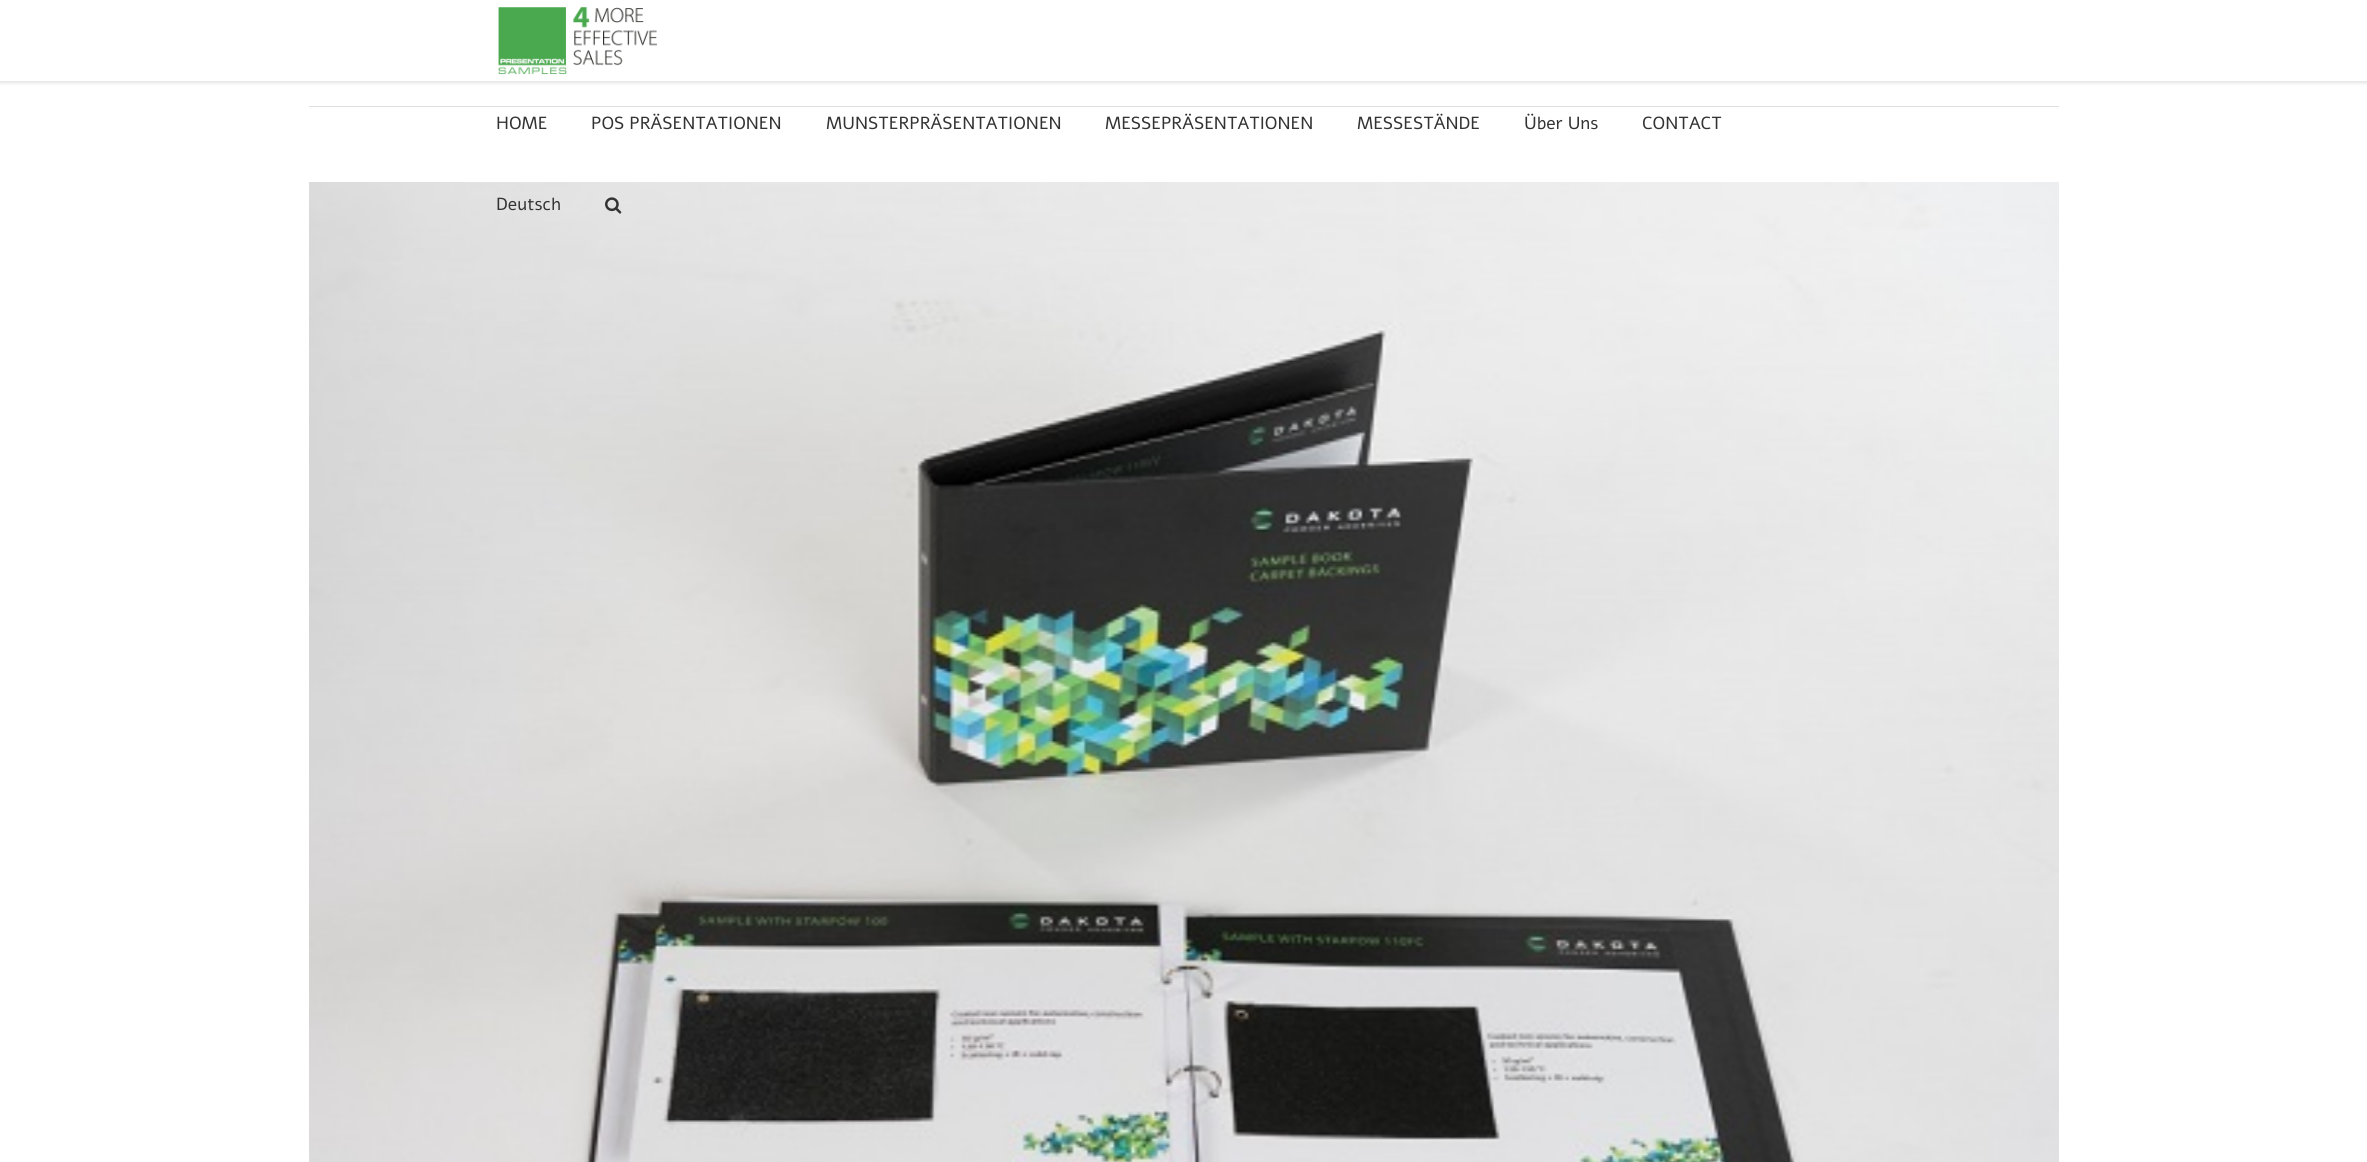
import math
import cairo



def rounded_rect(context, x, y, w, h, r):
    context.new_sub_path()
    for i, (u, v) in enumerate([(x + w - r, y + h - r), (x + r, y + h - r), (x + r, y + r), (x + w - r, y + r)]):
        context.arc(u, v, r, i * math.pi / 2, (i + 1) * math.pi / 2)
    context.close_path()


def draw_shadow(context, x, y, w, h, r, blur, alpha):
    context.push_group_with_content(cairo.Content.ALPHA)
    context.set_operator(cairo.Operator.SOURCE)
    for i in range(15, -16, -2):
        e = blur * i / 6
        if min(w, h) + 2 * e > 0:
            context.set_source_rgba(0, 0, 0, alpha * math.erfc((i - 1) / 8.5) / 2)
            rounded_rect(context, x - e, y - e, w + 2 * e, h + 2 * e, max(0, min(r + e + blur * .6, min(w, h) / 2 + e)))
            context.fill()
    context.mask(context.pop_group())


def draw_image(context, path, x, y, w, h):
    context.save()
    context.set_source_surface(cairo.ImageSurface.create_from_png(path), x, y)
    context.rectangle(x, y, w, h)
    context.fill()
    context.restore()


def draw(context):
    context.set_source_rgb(1, 1, 1)
    context.paint()
    context.set_source_rgb(224 / 255, 222 / 255, 222 / 255)
    context.rectangle(309, 106, 1750, 1)
    context.fill()
    draw_image(context, "images/1.png", 309, 182, 1750, 980)
    context.set_source_rgb(0, 0, 0)
    draw_shadow(context, 0, 1, 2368, 82, 0, 2, 0.12)
    context.set_source_rgb(1, 1, 1)
    context.rectangle(0, 0, 2367, 81)
    context.fill()
    draw_image(context, "images/2.png", 498, 7, 159, 68)
    draw_image(context, "images/3.png", 605, 197, 17, 17)
    context.select_font_face("Alef")
    context.set_font_size(17.5)
    context.set_source_rgb(51 / 255, 51 / 255, 51 / 255)
    context.move_to(496, 129)
    context.show_text("HOME")
    context.move_to(591, 129)
    context.show_text("POS PRÄSENTATIONEN")
    context.move_to(826, 129)
    context.show_text("MUNSTERPRÄSENTATIONEN")
    context.move_to(1105, 129)
    context.show_text("MESSEPRÄSENTATIONEN")
    context.move_to(1357, 129)
    context.show_text("MESSESTÄNDE")
    context.move_to(1524, 129)
    context.show_text("Über Uns")
    context.move_to(1642, 129)
    context.show_text("CONTACT")
    context.move_to(496, 210)
    context.show_text("Deutsch")


surface = cairo.ImageSurface(cairo.Format.RGB24, 2367, 1162)
context = cairo.Context(surface)
options = cairo.FontOptions()
options.set_hint_metrics(cairo.HintMetrics.OFF)
options.set_hint_style(cairo.HintStyle.NONE)
context.set_font_options(options)
context.set_miter_limit(4)
draw(context)
surface.write_to_png("out.png")
